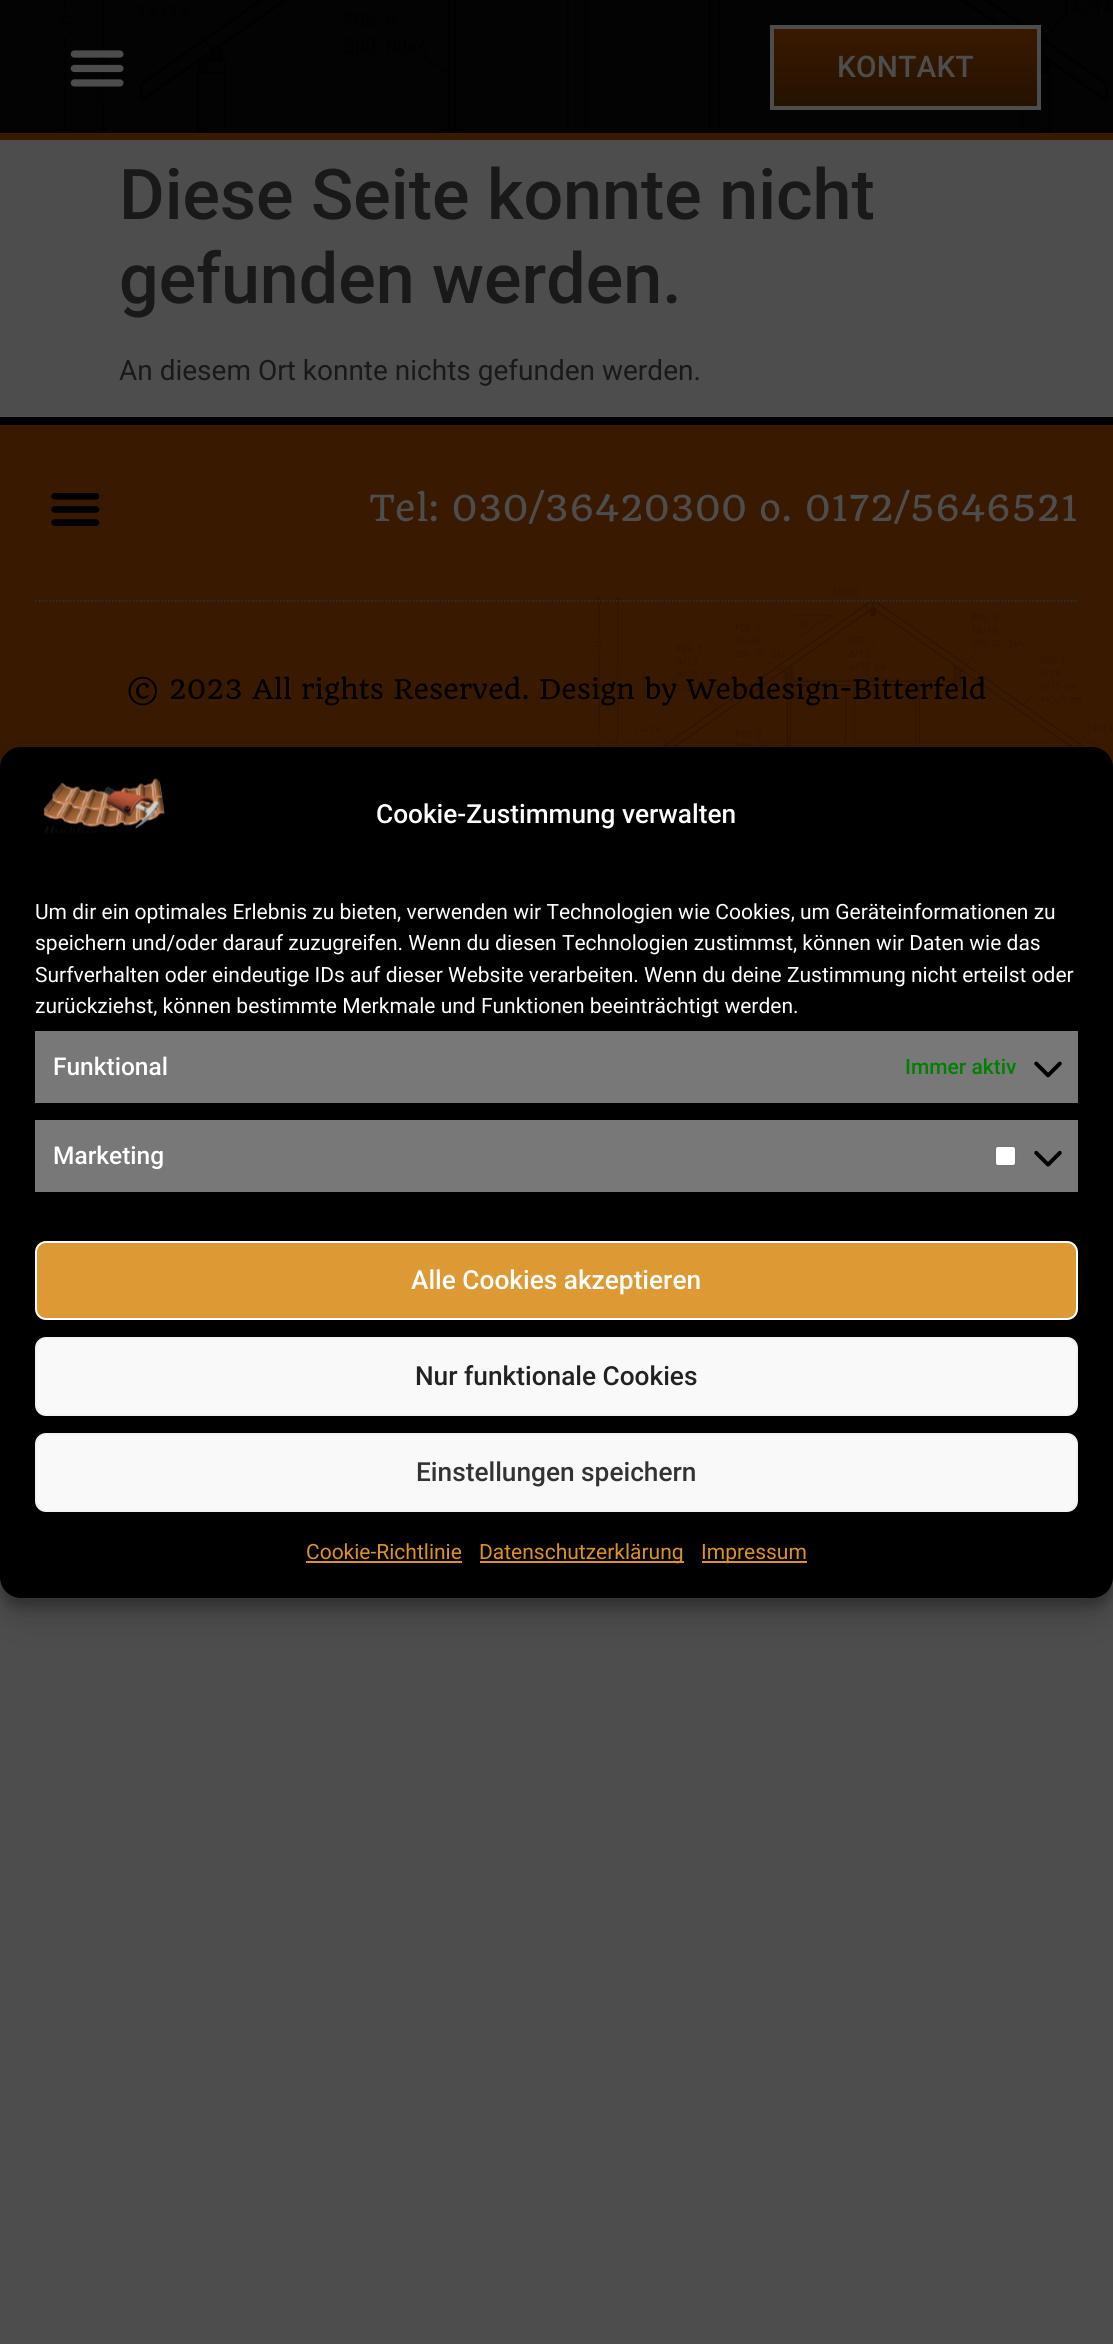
import math
import cairo



def draw_spaced(context, x, y, s, letter, word):
    context.move_to(x, y)
    for ch in s:
        context.show_text(ch)
        context.rel_move_to(letter + word * (ch == ' '), 0)


def rounded_rect(context, x, y, w, h, r):
    context.new_sub_path()
    for i, (u, v) in enumerate([(x + w - r, y + h - r), (x + r, y + h - r), (x + r, y + r), (x + w - r, y + r)]):
        context.arc(u, v, r, i * math.pi / 2, (i + 1) * math.pi / 2)
    context.close_path()


def draw_shadow(context, x, y, w, h, r, blur, alpha):
    context.push_group_with_content(cairo.Content.ALPHA)
    context.set_operator(cairo.Operator.SOURCE)
    for i in range(15, -16, -2):
        e = blur * i / 6
        if min(w, h) + 2 * e > 0:
            context.set_source_rgba(0, 0, 0, alpha * math.erfc((i - 1) / 8.5) / 2)
            rounded_rect(context, x - e, y - e, w + 2 * e, h + 2 * e, max(0, min(r + e + blur * .6, min(w, h) / 2 + e)))
            context.fill()
    context.mask(context.pop_group())


def draw_image(context, path, x, y, w, h):
    context.save()
    context.set_source_surface(cairo.ImageSurface.create_from_png(path), x, y)
    context.rectangle(x, y, w, h)
    context.fill()
    context.restore()


def draw(context):
    context.set_source_rgb(77 / 255, 77 / 255, 77 / 255)
    context.paint()
    context.set_source_rgb(3 / 255, 3 / 255, 3 / 255)
    context.rectangle(0, 0, 1113, 133)
    context.fill()
    draw_image(context, "images/1.png", 59, 0, 1054, 133)
    context.set_source_rgb(57 / 255, 25 / 255, 0)
    context.rectangle(0, 133, 1113, 7)
    context.fill()
    draw_image(context, "images/2.png", 70, 50, 54, 37)
    gradient = cairo.LinearGradient(906, 28, 906, 107)
    gradient.add_color_stop_rgba(0, 57 / 255, 25 / 255, 0, 1)
    gradient.add_color_stop_rgba(1, 37 / 255, 18 / 255, 0, 1)
    context.set_source(gradient)
    context.rectangle(774, 29, 263, 77)
    context.fill()
    context.rectangle(772, 27, 267, 81)
    context.set_source_rgb(77 / 255, 77 / 255, 77 / 255)
    context.set_line_width(4)
    context.stroke()
    context.set_source_rgb(57 / 255, 25 / 255, 0)
    context.rectangle(0, 425, 1113, 343)
    context.fill()
    context.set_source_rgb(0, 0, 0)
    context.rectangle(0, 417, 1113, 8)
    context.fill()
    draw_image(context, "images/4.png", 596, 588, 517, 159)
    context.new_path()
    context.move_to(35, 601)
    context.line_to(1078, 601)
    context.set_source_rgb(47 / 255, 47 / 255, 47 / 255)
    context.set_line_width(1.8)
    context.set_dash([1.75, 1.75])
    context.stroke()
    draw_image(context, "images/3.png", 51, 493, 49, 33)
    context.set_source_rgb(0, 0, 0)
    draw_shadow(context, 0, 758, 1113, 850, 21, 5, 0.23)
    draw_shadow(context, 0, 765, 1113, 850, 21, 17.5, 0.19)
    context.set_source_rgb(0, 0, 0)
    rounded_rect(context, 0, 747, 1113, 851, 21)
    context.fill()
    draw_image(context, "images/5.png", 43, 778, 122, 56)
    context.set_source_rgb(120 / 255, 120 / 255, 120 / 255)
    context.rectangle(35, 1031, 1043, 72)
    context.fill()
    draw_image(context, "images/6.png", 1034, 1061, 28, 17)
    context.rectangle(35, 1120, 1043, 72)
    context.fill()
    context.set_source_rgb(1, 1, 1)
    rounded_rect(context, 995, 1146, 21, 20, 3)
    context.fill_preserve()
    context.set_source_rgb(118 / 255, 118 / 255, 118 / 255)
    context.set_line_width(2)
    context.set_dash([])
    context.stroke()
    draw_image(context, "images/7.png", 1034, 1150, 28, 17)
    context.set_source_rgb(221 / 255, 153 / 255, 51 / 255)
    rounded_rect(context, 36, 1242, 1041, 77, 10)
    context.fill_preserve()
    context.set_source_rgb(1, 1, 1)
    context.stroke()
    context.set_source_rgb(249 / 255, 249 / 255, 249 / 255)
    rounded_rect(context, 36, 1338, 1041, 77, 10)
    context.fill_preserve()
    context.set_source_rgb(242 / 255, 242 / 255, 242 / 255)
    context.stroke()
    context.set_source_rgb(249 / 255, 249 / 255, 249 / 255)
    rounded_rect(context, 36, 1434, 1041, 77, 10)
    context.fill_preserve()
    context.set_source_rgb(242 / 255, 242 / 255, 242 / 255)
    context.stroke()
    context.set_source_rgb(221 / 255, 146 / 255, 33 / 255)
    context.rectangle(306, 1561, 156, 2)
    context.fill()
    context.rectangle(480, 1561, 204, 2)
    context.fill()
    context.rectangle(702, 1561, 105, 2)
    context.fill()
    context.select_font_face("Roboto Medium")
    context.set_font_size(29.75)
    context.set_source_rgb(77 / 255, 77 / 255, 77 / 255)
    draw_spaced(context, 837, 77, "KONTAKT", 0.25, 0)
    context.set_font_size(70)
    context.set_source_rgb(25 / 255, 25 / 255, 25 / 255)
    context.move_to(119, 219)
    context.show_text("Diese Seite konnte nicht")
    context.move_to(119, 303)
    context.show_text("gefunden werden.")
    context.select_font_face("Roboto")
    context.set_font_size(28)
    context.move_to(119, 380)
    context.show_text("An diesem Ort konnte nichts gefunden werden.")
    context.select_font_face("Quando")
    context.set_font_size(35)
    context.set_source_rgb(77 / 255, 77 / 255, 77 / 255)
    context.move_to(369, 521)
    context.show_text("Tel: 030/36420300 o. 0172/5646521")
    context.set_font_size(26.25)
    context.set_source_rgb(0, 0, 0)
    context.move_to(126, 699)
    context.show_text("© 2023 All rights Reserved. Design by Webdesign-Bitterfeld")
    context.select_font_face("Roboto Medium")
    context.set_source_rgb(1, 1, 1)
    context.move_to(376, 823)
    context.show_text("Cookie-Zustimmung verwalten")
    context.select_font_face("Roboto")
    context.set_font_size(21)
    context.move_to(35, 919)
    context.show_text("Um dir ein optimales Erlebnis zu bieten, verwenden wir Technologien wie Cookies, um Geräteinformationen zu")
    context.move_to(35, 950)
    context.show_text("speichern und/oder darauf zuzugreifen. Wenn du diesen Technologien zustimmst, können wir Daten wie das")
    context.move_to(35, 982)
    context.show_text("Surfverhalten oder eindeutige IDs auf dieser Website verarbeiten. Wenn du deine Zustimmung nicht erteilst oder")
    context.move_to(35, 1013)
    context.show_text("zurückziehst, können bestimmte Merkmale und Funktionen beeinträchtigt werden.")
    context.select_font_face("Roboto Medium")
    context.set_font_size(24.5)
    context.move_to(53, 1075)
    context.show_text("Funktional")
    context.set_font_size(21)
    context.set_source_rgb(0, 128 / 255, 0)
    context.move_to(905, 1074)
    context.show_text("Immer aktiv")
    context.set_font_size(24.5)
    context.set_source_rgb(1, 1, 1)
    context.move_to(53, 1164)
    context.show_text("Marketing")
    context.set_font_size(26.25)
    context.move_to(411, 1289)
    context.show_text("Alle Cookies akzeptieren")
    context.set_source_rgb(34 / 255, 34 / 255, 34 / 255)
    context.move_to(415, 1385)
    context.show_text("Nur funktionale Cookies")
    context.set_source_rgb(51 / 255, 51 / 255, 51 / 255)
    context.move_to(416, 1481)
    context.show_text("Einstellungen speichern")
    context.select_font_face("Roboto")
    context.set_font_size(21)
    context.set_source_rgb(221 / 255, 146 / 255, 33 / 255)
    context.move_to(306, 1559)
    context.show_text("Cookie-Richtlinie")
    context.move_to(479, 1559)
    context.show_text("Datenschutzerklärung")
    context.move_to(701, 1559)
    context.show_text("Impressum")


surface = cairo.ImageSurface(cairo.Format.RGB24, 1113, 2344)
context = cairo.Context(surface)
options = cairo.FontOptions()
options.set_hint_metrics(cairo.HintMetrics.OFF)
options.set_hint_style(cairo.HintStyle.NONE)
context.set_font_options(options)
context.set_miter_limit(4)
draw(context)
surface.write_to_png("out.png")
